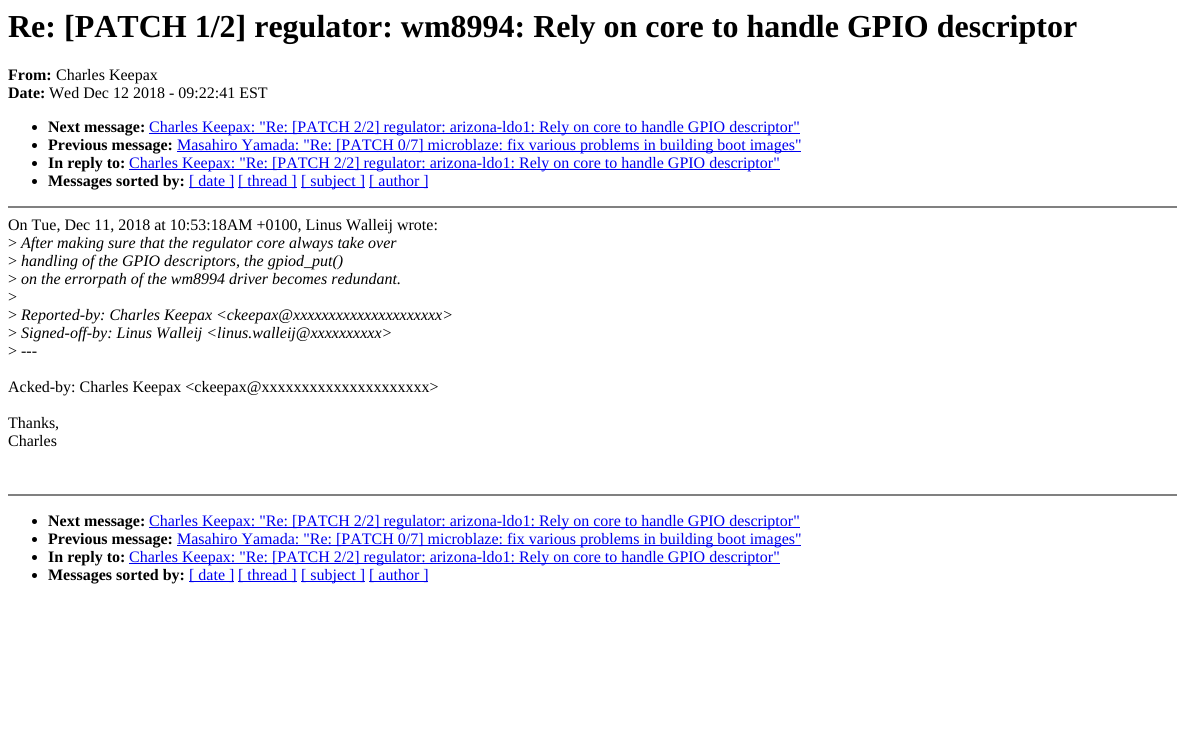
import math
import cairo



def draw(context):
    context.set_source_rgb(1, 1, 1)
    context.paint()
    context.set_source_rgb(0, 0, 0)
    context.arc(34.5, 127.5, 2.5, 0, 2 * math.pi)
    context.fill()
    context.set_source_rgb(0, 0, 238 / 255)
    context.rectangle(149, 133, 651, 1)
    context.fill()
    context.set_source_rgb(0, 0, 0)
    context.arc(34.5, 145.5, 2.5, 0, 2 * math.pi)
    context.fill()
    context.set_source_rgb(0, 0, 238 / 255)
    context.rectangle(177, 151, 624, 1)
    context.fill()
    context.set_source_rgb(0, 0, 0)
    context.arc(34.5, 163.5, 2.5, 0, 2 * math.pi)
    context.fill()
    context.set_source_rgb(0, 0, 238 / 255)
    context.rectangle(129, 169, 651, 1)
    context.fill()
    context.set_source_rgb(0, 0, 0)
    context.arc(34.5, 181.5, 2.5, 0, 2 * math.pi)
    context.fill()
    context.set_source_rgb(0, 0, 238 / 255)
    context.rectangle(189, 187, 45, 1)
    context.fill()
    context.rectangle(238, 187, 59, 1)
    context.fill()
    context.rectangle(301, 187, 64, 1)
    context.fill()
    context.rectangle(369, 187, 59, 1)
    context.fill()
    context.set_source_rgb(128 / 255, 128 / 255, 128 / 255)
    context.rectangle(8, 206, 1169, 2)
    context.fill()
    context.rectangle(8, 494, 1169, 2)
    context.fill()
    context.set_source_rgb(0, 0, 0)
    context.arc(34.5, 521.5, 2.5, 0, 2 * math.pi)
    context.fill()
    context.set_source_rgb(0, 0, 238 / 255)
    context.rectangle(149, 527, 651, 1)
    context.fill()
    context.set_source_rgb(0, 0, 0)
    context.arc(34.5, 539.5, 2.5, 0, 2 * math.pi)
    context.fill()
    context.set_source_rgb(0, 0, 238 / 255)
    context.rectangle(177, 545, 624, 1)
    context.fill()
    context.set_source_rgb(0, 0, 0)
    context.arc(34.5, 557.5, 2.5, 0, 2 * math.pi)
    context.fill()
    context.set_source_rgb(0, 0, 238 / 255)
    context.rectangle(129, 563, 651, 1)
    context.fill()
    context.set_source_rgb(0, 0, 0)
    context.arc(34.5, 575.5, 2.5, 0, 2 * math.pi)
    context.fill()
    context.set_source_rgb(0, 0, 238 / 255)
    context.rectangle(189, 581, 45, 1)
    context.fill()
    context.rectangle(238, 581, 59, 1)
    context.fill()
    context.rectangle(301, 581, 64, 1)
    context.fill()
    context.rectangle(369, 581, 59, 1)
    context.fill()
    context.select_font_face("Liberation Serif", cairo.FontSlant.NORMAL, cairo.FontWeight.BOLD)
    context.set_font_size(32)
    context.set_source_rgb(0, 0, 0)
    context.move_to(8, 37)
    context.show_text("Re: [PATCH 1/2] regulator: wm8994: Rely on core to handle GPIO descriptor")
    context.set_font_size(16)
    context.move_to(8, 80)
    context.show_text("From:")
    context.select_font_face("Liberation Serif")
    context.move_to(56, 80)
    context.show_text("Charles Keepax")
    context.select_font_face("Liberation Serif", cairo.FontSlant.NORMAL, cairo.FontWeight.BOLD)
    context.move_to(8, 98)
    context.show_text("Date:")
    context.select_font_face("Liberation Serif")
    context.move_to(49, 98)
    context.show_text("Wed Dec 12 2018 - 09:22:41 EST")
    context.select_font_face("Liberation Serif", cairo.FontSlant.NORMAL, cairo.FontWeight.BOLD)
    context.move_to(48, 132)
    context.show_text("Next message:")
    context.select_font_face("Liberation Serif")
    context.set_source_rgb(0, 0, 238 / 255)
    context.move_to(149, 132)
    context.show_text("Charles Keepax: \"Re: [PATCH 2/2] regulator: arizona-ldo1: Rely on core to handle GPIO descriptor\"")
    context.select_font_face("Liberation Serif", cairo.FontSlant.NORMAL, cairo.FontWeight.BOLD)
    context.set_source_rgb(0, 0, 0)
    context.move_to(48, 150)
    context.show_text("Previous message:")
    context.select_font_face("Liberation Serif")
    context.set_source_rgb(0, 0, 238 / 255)
    context.move_to(177, 150)
    context.show_text("Masahiro Yamada: \"Re: [PATCH 0/7] microblaze: fix various problems in building boot images\"")
    context.select_font_face("Liberation Serif", cairo.FontSlant.NORMAL, cairo.FontWeight.BOLD)
    context.set_source_rgb(0, 0, 0)
    context.move_to(48, 168)
    context.show_text("In reply to:")
    context.select_font_face("Liberation Serif")
    context.set_source_rgb(0, 0, 238 / 255)
    context.move_to(129, 168)
    context.show_text("Charles Keepax: \"Re: [PATCH 2/2] regulator: arizona-ldo1: Rely on core to handle GPIO descriptor\"")
    context.select_font_face("Liberation Serif", cairo.FontSlant.NORMAL, cairo.FontWeight.BOLD)
    context.set_source_rgb(0, 0, 0)
    context.move_to(48, 186)
    context.show_text("Messages sorted by:")
    context.select_font_face("Liberation Serif")
    context.set_source_rgb(0, 0, 238 / 255)
    context.move_to(189, 186)
    context.show_text("[ date ]")
    context.move_to(238, 186)
    context.show_text("[ thread ]")
    context.move_to(301, 186)
    context.show_text("[ subject ]")
    context.move_to(369, 186)
    context.show_text("[ author ]")
    context.set_source_rgb(0, 0, 0)
    context.move_to(8, 230)
    context.show_text("On Tue, Dec 11, 2018 at 10:53:18AM +0100, Linus Walleij wrote:")
    context.move_to(8, 248)
    context.show_text(">")
    context.select_font_face("Liberation Serif", cairo.FontSlant.ITALIC)
    context.move_to(21, 248)
    context.show_text("After making sure that the regulator core always take over")
    context.select_font_face("Liberation Serif")
    context.move_to(8, 266)
    context.show_text(">")
    context.select_font_face("Liberation Serif", cairo.FontSlant.ITALIC)
    context.move_to(21, 266)
    context.show_text("handling of the GPIO descriptors, the gpiod_put()")
    context.select_font_face("Liberation Serif")
    context.move_to(8, 284)
    context.show_text(">")
    context.select_font_face("Liberation Serif", cairo.FontSlant.ITALIC)
    context.move_to(21, 284)
    context.show_text("on the errorpath of the wm8994 driver becomes redundant.")
    context.select_font_face("Liberation Serif")
    context.move_to(8, 302)
    context.show_text(">")
    context.move_to(8, 320)
    context.show_text(">")
    context.select_font_face("Liberation Serif", cairo.FontSlant.ITALIC)
    context.move_to(21, 320)
    context.show_text("Reported-by: Charles Keepax <ckeepax@xxxxxxxxxxxxxxxxxxxxx>")
    context.select_font_face("Liberation Serif")
    context.move_to(8, 338)
    context.show_text(">")
    context.select_font_face("Liberation Serif", cairo.FontSlant.ITALIC)
    context.move_to(21, 338)
    context.show_text("Signed-off-by: Linus Walleij <linus.walleij@xxxxxxxxxx>")
    context.select_font_face("Liberation Serif")
    context.move_to(8, 356)
    context.show_text(">")
    context.select_font_face("Liberation Serif", cairo.FontSlant.ITALIC)
    context.move_to(21, 356)
    context.show_text("---")
    context.select_font_face("Liberation Serif")
    context.move_to(8, 392)
    context.show_text("Acked-by: Charles Keepax <ckeepax@xxxxxxxxxxxxxxxxxxxxx>")
    context.move_to(8, 428)
    context.show_text("Thanks,")
    context.move_to(8, 446)
    context.show_text("Charles")
    context.select_font_face("Liberation Serif", cairo.FontSlant.NORMAL, cairo.FontWeight.BOLD)
    context.move_to(48, 526)
    context.show_text("Next message:")
    context.select_font_face("Liberation Serif")
    context.set_source_rgb(0, 0, 238 / 255)
    context.move_to(149, 526)
    context.show_text("Charles Keepax: \"Re: [PATCH 2/2] regulator: arizona-ldo1: Rely on core to handle GPIO descriptor\"")
    context.select_font_face("Liberation Serif", cairo.FontSlant.NORMAL, cairo.FontWeight.BOLD)
    context.set_source_rgb(0, 0, 0)
    context.move_to(48, 544)
    context.show_text("Previous message:")
    context.select_font_face("Liberation Serif")
    context.set_source_rgb(0, 0, 238 / 255)
    context.move_to(177, 544)
    context.show_text("Masahiro Yamada: \"Re: [PATCH 0/7] microblaze: fix various problems in building boot images\"")
    context.select_font_face("Liberation Serif", cairo.FontSlant.NORMAL, cairo.FontWeight.BOLD)
    context.set_source_rgb(0, 0, 0)
    context.move_to(48, 562)
    context.show_text("In reply to:")
    context.select_font_face("Liberation Serif")
    context.set_source_rgb(0, 0, 238 / 255)
    context.move_to(129, 562)
    context.show_text("Charles Keepax: \"Re: [PATCH 2/2] regulator: arizona-ldo1: Rely on core to handle GPIO descriptor\"")
    context.select_font_face("Liberation Serif", cairo.FontSlant.NORMAL, cairo.FontWeight.BOLD)
    context.set_source_rgb(0, 0, 0)
    context.move_to(48, 580)
    context.show_text("Messages sorted by:")
    context.select_font_face("Liberation Serif")
    context.set_source_rgb(0, 0, 238 / 255)
    context.move_to(189, 580)
    context.show_text("[ date ]")
    context.move_to(238, 580)
    context.show_text("[ thread ]")
    context.move_to(301, 580)
    context.show_text("[ subject ]")
    context.move_to(369, 580)
    context.show_text("[ author ]")


surface = cairo.ImageSurface(cairo.Format.RGB24, 1185, 738)
context = cairo.Context(surface)
options = cairo.FontOptions()
options.set_hint_metrics(cairo.HintMetrics.OFF)
options.set_hint_style(cairo.HintStyle.NONE)
context.set_font_options(options)
context.set_miter_limit(4)
draw(context)
surface.write_to_png("out.png")
